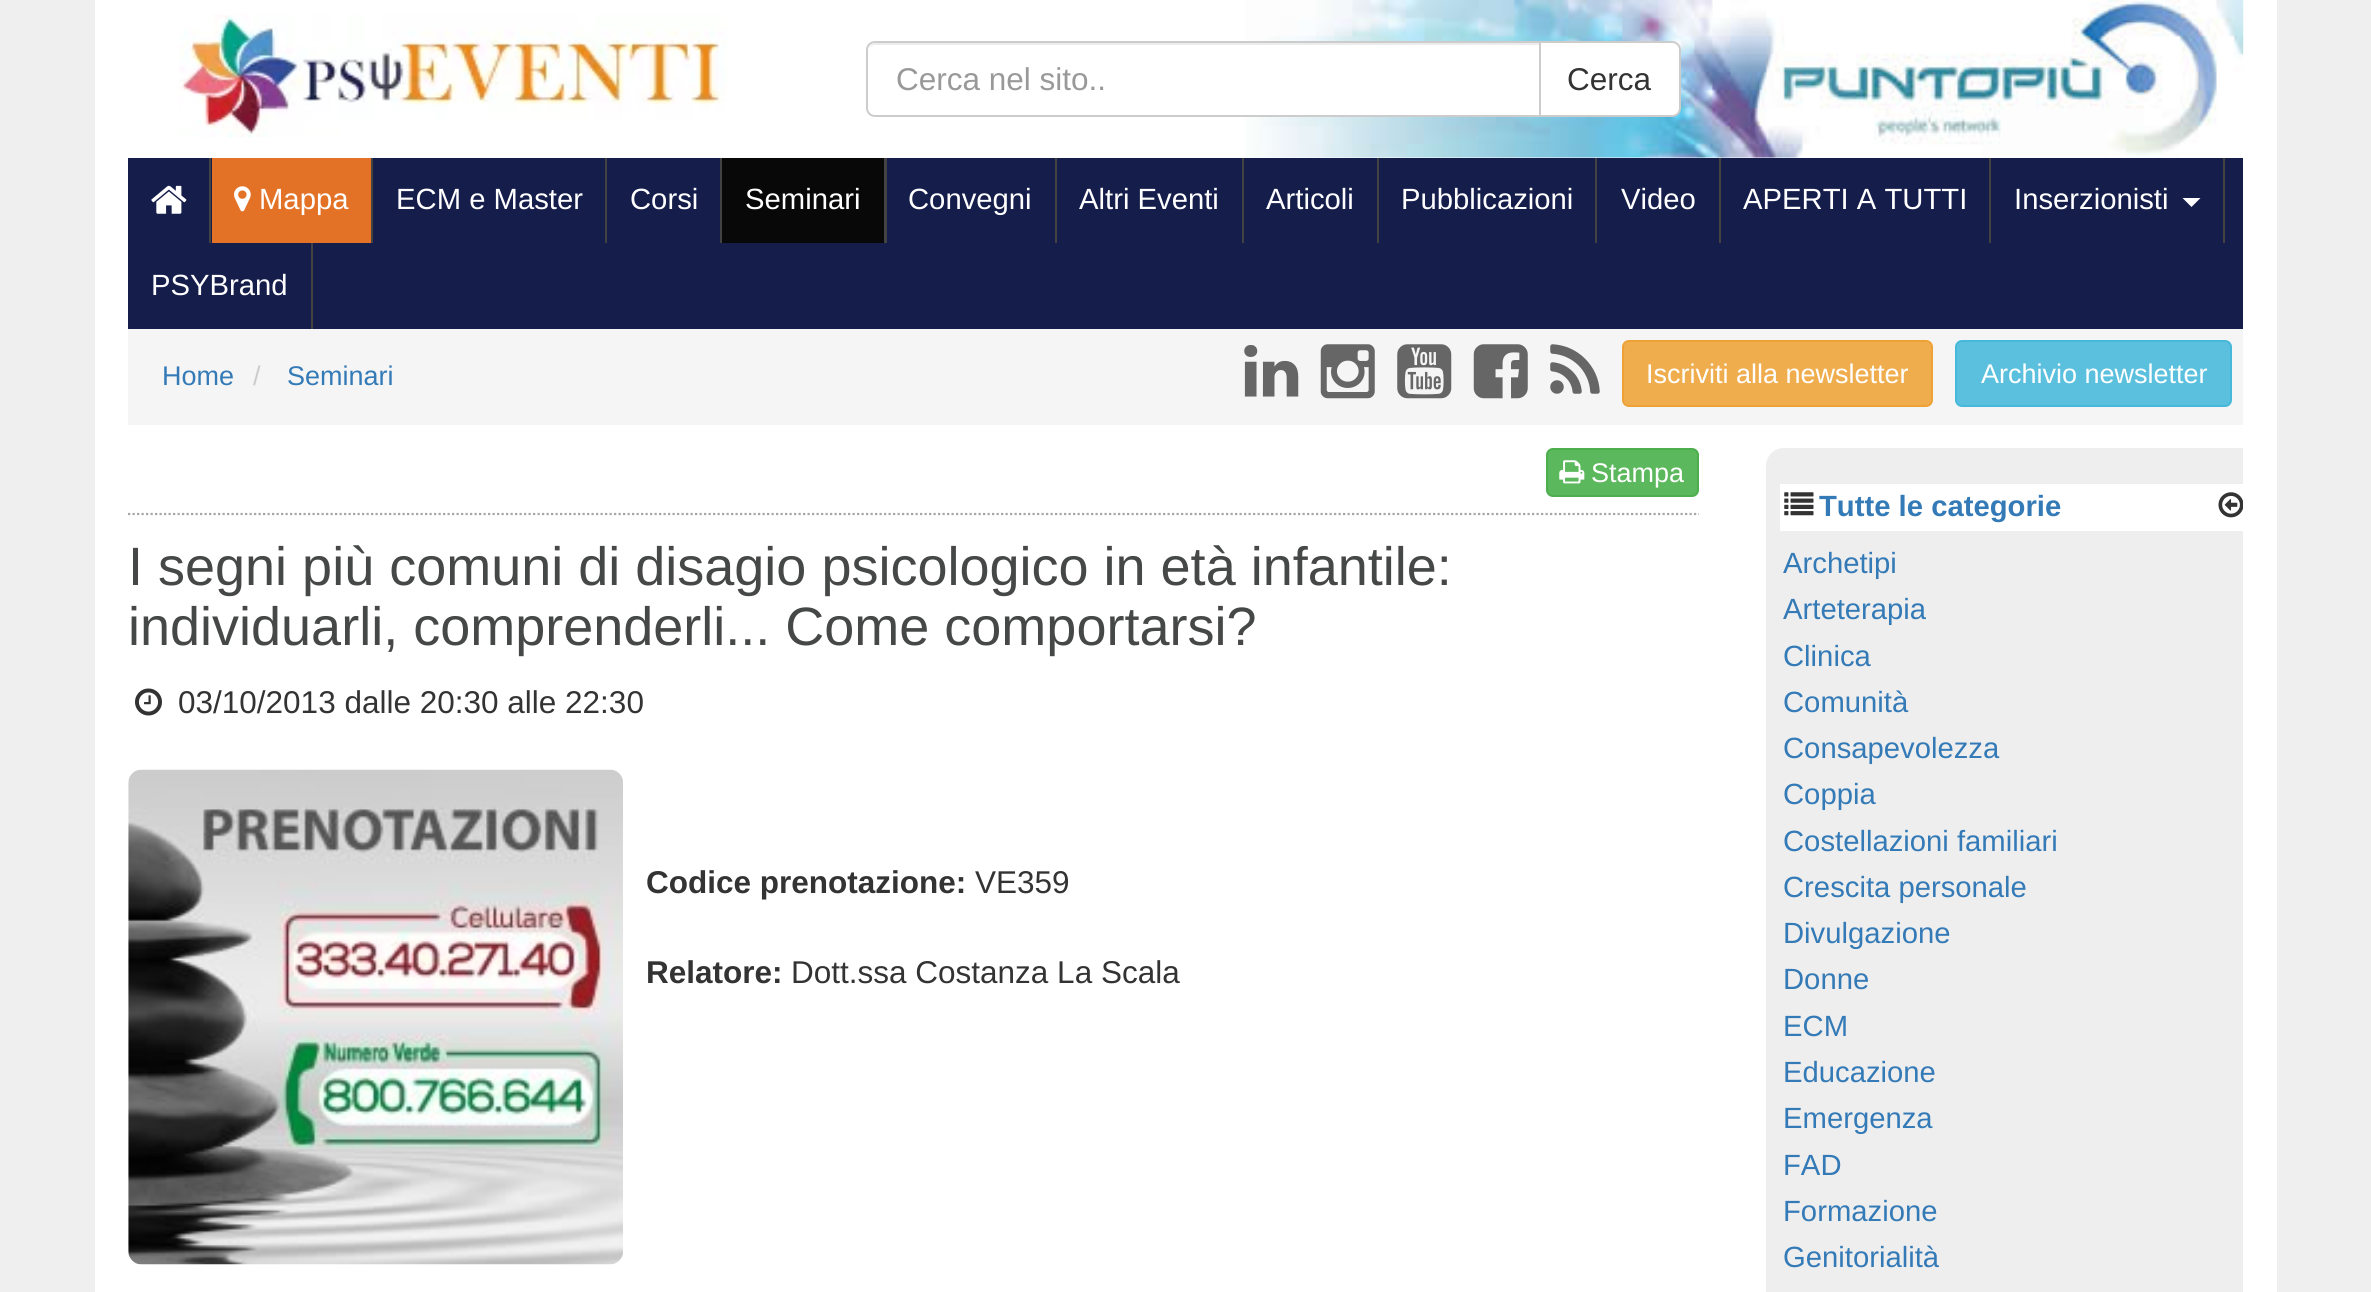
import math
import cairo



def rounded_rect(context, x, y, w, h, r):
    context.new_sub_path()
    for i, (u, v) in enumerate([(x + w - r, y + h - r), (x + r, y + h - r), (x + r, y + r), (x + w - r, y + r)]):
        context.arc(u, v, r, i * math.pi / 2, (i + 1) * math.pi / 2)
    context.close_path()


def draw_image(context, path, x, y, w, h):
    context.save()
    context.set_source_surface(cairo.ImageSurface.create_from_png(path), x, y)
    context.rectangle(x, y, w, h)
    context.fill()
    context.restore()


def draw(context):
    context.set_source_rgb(240 / 255, 239 / 255, 239 / 255)
    context.paint()
    context.set_source_rgb(1, 1, 1)
    context.rectangle(95, 0, 2182, 1292)
    context.fill()
    draw_image(context, "images/1.png", 1245, 0, 999, 158)
    draw_image(context, "images/2.png", 179, 14, 548, 124)
    context.new_path()
    context.move_to(875, 41)
    context.line_to(1541, 41)
    context.line_to(1541, 117)
    context.line_to(875, 117)
    context.curve_to(870, 117, 866, 113, 866, 108)
    context.line_to(866, 50)
    context.curve_to(866, 45, 870, 41, 875, 41)
    context.close_path()
    context.fill()
    context.set_source_rgb(236 / 255, 236 / 255, 236 / 255)
    context.new_path()
    context.move_to(875, 45)
    context.line_to(1539, 45)
    context.line_to(1539, 43)
    context.line_to(876, 43)
    context.curve_to(873, 43, 870, 45, 869, 48)
    context.curve_to(871, 46, 873, 45, 875, 45)
    context.close_path()
    context.fill()
    context.new_path()
    context.move_to(875, 42)
    context.line_to(1540, 42)
    context.line_to(1540, 116)
    context.line_to(875, 116)
    context.curve_to(870.5, 116, 867, 112.5, 867, 108)
    context.line_to(867, 50)
    context.curve_to(867, 45.5, 870.5, 42, 875, 42)
    context.close_path()
    context.set_source_rgb(204 / 255, 204 / 255, 204 / 255)
    context.stroke()
    context.set_source_rgb(1, 1, 1)
    context.new_path()
    context.move_to(1540, 42)
    context.line_to(1672, 42)
    context.curve_to(1676.5, 42, 1680, 45.5, 1680, 50)
    context.line_to(1680, 108)
    context.curve_to(1680, 112.5, 1676.5, 116, 1672, 116)
    context.line_to(1540, 116)
    context.close_path()
    context.fill_preserve()
    context.set_source_rgb(204 / 255, 204 / 255, 204 / 255)
    context.stroke()
    context.set_source_rgb(21 / 255, 29 / 255, 75 / 255)
    context.rectangle(128, 158, 2115, 171)
    context.fill()
    context.set_source_rgb(66 / 255, 66 / 255, 66 / 255)
    context.rectangle(209, 158, 2, 85)
    context.fill()
    draw_image(context, "images/3.png", 151, 185, 36, 29)
    context.rectangle(371, 158, 2, 85)
    context.fill()
    context.set_source_rgb(227 / 255, 114 / 255, 39 / 255)
    context.rectangle(212, 158, 159, 85)
    context.fill()
    draw_image(context, "images/4.png", 234, 186, 17, 26)
    context.set_source_rgb(66 / 255, 66 / 255, 66 / 255)
    context.rectangle(605, 158, 2, 85)
    context.fill()
    context.rectangle(720, 158, 2, 85)
    context.fill()
    context.rectangle(884, 158, 3, 85)
    context.fill()
    context.set_source_rgb(8 / 255, 8 / 255, 8 / 255)
    context.rectangle(722, 158, 162, 85)
    context.fill()
    context.set_source_rgb(66 / 255, 66 / 255, 66 / 255)
    context.rectangle(1055, 158, 2, 85)
    context.fill()
    context.rectangle(1242, 158, 2, 85)
    context.fill()
    context.rectangle(1377, 158, 2, 85)
    context.fill()
    context.rectangle(1595, 158, 2, 85)
    context.fill()
    context.rectangle(1719, 158, 2, 85)
    context.fill()
    context.rectangle(1989, 158, 2, 85)
    context.fill()
    context.rectangle(2223, 158, 2, 85)
    context.fill()
    context.set_source_rgb(1, 1, 1)
    context.new_path()
    context.move_to(2182.5, 198)
    context.line_to(2200.5, 198)
    context.line_to(2191.5, 207)
    context.close_path()
    context.fill()
    context.set_source_rgb(66 / 255, 66 / 255, 66 / 255)
    context.rectangle(311, 243, 2, 86)
    context.fill()
    context.set_source_rgb(245 / 255, 245 / 255, 245 / 255)
    context.rectangle(128, 329, 2115, 96)
    context.fill()
    draw_image(context, "images/5.png", 1244, 345, 55, 52)
    draw_image(context, "images/6.png", 1320, 344, 55, 55)
    draw_image(context, "images/7.png", 1397, 344, 55, 55)
    draw_image(context, "images/8.png", 1473, 344, 55, 55)
    draw_image(context, "images/9.png", 1550, 344, 50, 50)
    context.set_source_rgb(240 / 255, 173 / 255, 78 / 255)
    rounded_rect(context, 1623, 341, 309, 65, 6)
    context.fill_preserve()
    context.set_source_rgb(238 / 255, 162 / 255, 54 / 255)
    context.stroke()
    context.set_source_rgb(91 / 255, 192 / 255, 222 / 255)
    rounded_rect(context, 1956, 341, 275, 65, 6)
    context.fill_preserve()
    context.set_source_rgb(70 / 255, 184 / 255, 218 / 255)
    context.stroke()
    context.new_path()
    context.move_to(128, 514)
    context.line_to(1699, 514)
    context.set_source_rgb(167 / 255, 167 / 255, 167 / 255)
    context.set_line_width(2.2)
    context.set_dash([2.25, 2.25])
    context.stroke()
    context.set_source_rgb(92 / 255, 184 / 255, 92 / 255)
    rounded_rect(context, 1547, 449, 151, 47, 6)
    context.fill_preserve()
    context.set_source_rgb(76 / 255, 174 / 255, 76 / 255)
    context.set_line_width(2)
    context.set_dash([])
    context.stroke()
    draw_image(context, "images/10.png", 1559, 460, 26, 24)
    draw_image(context, "images/11.png", 135, 688, 27, 28)
    draw_image(context, "images/12.png", 128, 769, 495, 496)
    context.set_source_rgb(238 / 255, 238 / 255, 238 / 255)
    context.new_path()
    context.move_to(1784, 448)
    context.line_to(2243, 448)
    context.line_to(2243, 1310)
    context.line_to(1784, 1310)
    context.curve_to(1774, 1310, 1766, 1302, 1766, 1292)
    context.line_to(1766, 466)
    context.curve_to(1766, 456, 1774, 448, 1784, 448)
    context.close_path()
    context.fill()
    context.set_source_rgb(1, 1, 1)
    context.rectangle(1780, 484, 463, 47)
    context.fill()
    draw_image(context, "images/13.png", 1784, 492, 30, 24)
    draw_image(context, "images/14.png", 2218, 492, 25, 26)
    context.select_font_face("Liberation Sans")
    context.set_font_size(31.5)
    context.set_source_rgb(153 / 255, 153 / 255, 153 / 255)
    context.move_to(896, 90)
    context.show_text("Cerca nel sito..")
    context.set_source_rgb(51 / 255, 51 / 255, 51 / 255)
    context.move_to(1567, 90)
    context.show_text("Cerca")
    context.set_font_size(29.25)
    context.set_source_rgb(1, 1, 1)
    context.move_to(259, 209)
    context.show_text("Mappa")
    context.move_to(396, 209)
    context.show_text("ECM e Master")
    context.move_to(630, 209)
    context.show_text("Corsi")
    context.move_to(745, 209)
    context.show_text("Seminari")
    context.move_to(908, 209)
    context.show_text("Convegni")
    context.move_to(1079, 209)
    context.show_text("Altri Eventi")
    context.move_to(1266, 209)
    context.show_text("Articoli")
    context.move_to(1401, 209)
    context.show_text("Pubblicazioni")
    context.move_to(1621, 209)
    context.show_text("Video")
    context.move_to(1743, 209)
    context.show_text("APERTI A TUTTI")
    context.move_to(2014, 209)
    context.show_text("Inserzionisti")
    context.move_to(151, 295)
    context.show_text("PSYBrand")
    context.set_font_size(27)
    context.set_source_rgb(51 / 255, 122 / 255, 183 / 255)
    context.move_to(162, 385)
    context.show_text("Home")
    context.set_source_rgb(204 / 255, 204 / 255, 204 / 255)
    context.move_to(253, 385)
    context.show_text("/")
    context.set_source_rgb(51 / 255, 122 / 255, 183 / 255)
    context.move_to(287, 385)
    context.show_text("Seminari")
    context.set_source_rgb(1, 1, 1)
    context.move_to(1646, 383)
    context.show_text("Iscriviti alla newsletter")
    context.move_to(1981, 383)
    context.show_text("Archivio newsletter")
    context.move_to(1591, 482)
    context.show_text("Stampa")
    context.set_font_size(54)
    context.set_source_rgb(70 / 255, 71 / 255, 71 / 255)
    context.move_to(128, 585)
    context.show_text("I segni più comuni di disagio psicologico in età infantile:")
    context.move_to(128, 645)
    context.show_text("individuarli, comprenderli... Come comportarsi?")
    context.set_font_size(31.5)
    context.set_source_rgb(51 / 255, 51 / 255, 51 / 255)
    context.move_to(178, 713)
    context.show_text("03/10/2013 dalle 20:30 alle 22:30")
    context.select_font_face("Liberation Sans", cairo.FontSlant.NORMAL, cairo.FontWeight.BOLD)
    context.move_to(646, 893)
    context.show_text("Codice prenotazione:")
    context.select_font_face("Liberation Sans")
    context.move_to(975, 893)
    context.show_text("VE359")
    context.select_font_face("Liberation Sans", cairo.FontSlant.NORMAL, cairo.FontWeight.BOLD)
    context.move_to(646, 983)
    context.show_text("Relatore:")
    context.select_font_face("Liberation Sans")
    context.move_to(791, 983)
    context.show_text("Dott.ssa Costanza La Scala")
    context.select_font_face("Liberation Sans", cairo.FontSlant.NORMAL, cairo.FontWeight.BOLD)
    context.set_font_size(29.25)
    context.set_source_rgb(51 / 255, 122 / 255, 183 / 255)
    context.move_to(1819, 516)
    context.show_text("Tutte le categorie")
    context.select_font_face("Liberation Sans")
    context.move_to(1783, 573)
    context.show_text("Archetipi")
    context.move_to(1783, 619)
    context.show_text("Arteterapia")
    context.move_to(1783, 666)
    context.show_text("Clinica")
    context.move_to(1783, 712)
    context.show_text("Comunità")
    context.move_to(1783, 758)
    context.show_text("Consapevolezza")
    context.move_to(1783, 804)
    context.show_text("Coppia")
    context.move_to(1783, 851)
    context.show_text("Costellazioni familiari")
    context.move_to(1783, 897)
    context.show_text("Crescita personale")
    context.move_to(1783, 943)
    context.show_text("Divulgazione")
    context.move_to(1783, 989)
    context.show_text("Donne")
    context.move_to(1783, 1036)
    context.show_text("ECM")
    context.move_to(1783, 1082)
    context.show_text("Educazione")
    context.move_to(1783, 1128)
    context.show_text("Emergenza")
    context.move_to(1783, 1175)
    context.show_text("FAD")
    context.move_to(1783, 1221)
    context.show_text("Formazione")
    context.move_to(1783, 1267)
    context.show_text("Genitorialità")


surface = cairo.ImageSurface(cairo.Format.RGB24, 2371, 1292)
context = cairo.Context(surface)
options = cairo.FontOptions()
options.set_hint_metrics(cairo.HintMetrics.OFF)
options.set_hint_style(cairo.HintStyle.NONE)
context.set_font_options(options)
context.set_miter_limit(4)
draw(context)
surface.write_to_png("out.png")
